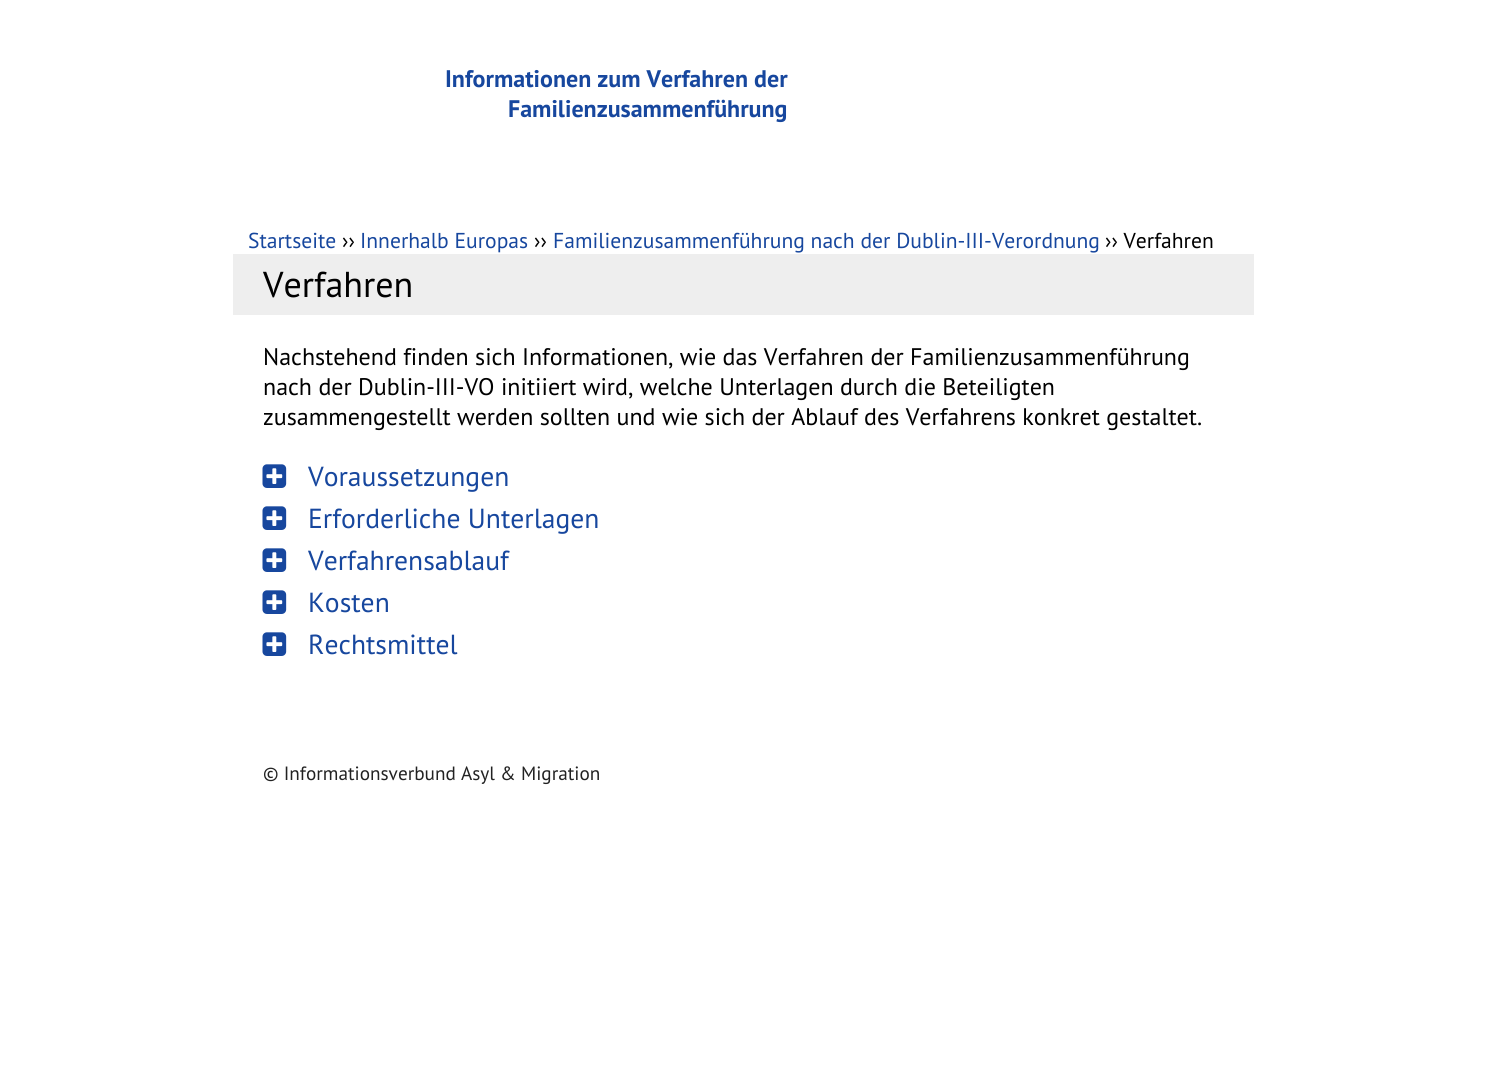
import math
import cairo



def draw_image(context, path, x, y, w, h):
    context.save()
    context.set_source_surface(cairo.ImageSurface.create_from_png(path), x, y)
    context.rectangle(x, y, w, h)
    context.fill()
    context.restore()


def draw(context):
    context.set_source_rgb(1, 1, 1)
    context.paint()
    context.set_source_rgb(238 / 255, 238 / 255, 238 / 255)
    context.rectangle(233, 254, 1021, 61)
    context.fill()
    draw_image(context, "images/1.png", 262, 464, 25, 24)
    draw_image(context, "images/1.png", 262, 506, 25, 24)
    draw_image(context, "images/1.png", 262, 548, 25, 24)
    draw_image(context, "images/1.png", 262, 590, 25, 24)
    draw_image(context, "images/1.png", 262, 632, 25, 24)
    context.select_font_face("PT Sans", cairo.FontSlant.NORMAL, cairo.FontWeight.BOLD)
    context.set_font_size(24)
    context.set_source_rgb(23 / 255, 71 / 255, 158 / 255)
    context.move_to(445, 87)
    context.show_text("Informationen zum Verfahren der")
    context.move_to(508, 117)
    context.show_text("Familienzusammenführung")
    context.select_font_face("PT Sans")
    context.set_font_size(21.6)
    context.move_to(248, 248)
    context.show_text("Startseite")
    context.set_source_rgb(0, 0, 0)
    context.move_to(342, 248)
    context.show_text("››")
    context.set_source_rgb(23 / 255, 71 / 255, 158 / 255)
    context.move_to(360, 248)
    context.show_text("Innerhalb Europas")
    context.set_source_rgb(0, 0, 0)
    context.move_to(534, 248)
    context.show_text("››")
    context.set_source_rgb(23 / 255, 71 / 255, 158 / 255)
    context.move_to(553, 248)
    context.show_text("Familienzusammenführung nach der Dublin-III-Verordnung")
    context.set_source_rgb(0, 0, 0)
    context.move_to(1105, 248)
    context.show_text("›› Verfahren")
    context.set_font_size(36)
    context.move_to(263, 297)
    context.show_text("Verfahren")
    context.set_font_size(24)
    context.move_to(263, 365)
    context.show_text("Nachstehend finden sich Informationen, wie das Verfahren der Familienzusammenführung")
    context.move_to(263, 395)
    context.show_text("nach der Dublin-III-VO initiiert wird, welche Unterlagen durch die Beteiligten")
    context.move_to(263, 425)
    context.show_text("zusammengestellt werden sollten und wie sich der Ablauf des Verfahrens konkret gestaltet.")
    context.set_font_size(27.6)
    context.set_source_rgb(23 / 255, 71 / 255, 158 / 255)
    context.move_to(308, 486)
    context.show_text("Voraussetzungen")
    context.move_to(308, 528)
    context.show_text("Erforderliche Unterlagen")
    context.move_to(308, 570)
    context.show_text("Verfahrensablauf")
    context.move_to(308, 612)
    context.show_text("Kosten")
    context.move_to(308, 654)
    context.show_text("Rechtsmittel")
    context.set_font_size(19.25)
    context.set_source_rgb(34 / 255, 34 / 255, 34 / 255)
    context.move_to(263, 780)
    context.show_text("© Informationsverbund Asyl & Migration")


surface = cairo.ImageSurface(cairo.Format.RGB24, 1486, 1080)
context = cairo.Context(surface)
options = cairo.FontOptions()
options.set_hint_metrics(cairo.HintMetrics.OFF)
options.set_hint_style(cairo.HintStyle.NONE)
context.set_font_options(options)
context.set_miter_limit(4)
draw(context)
surface.write_to_png("out.png")
